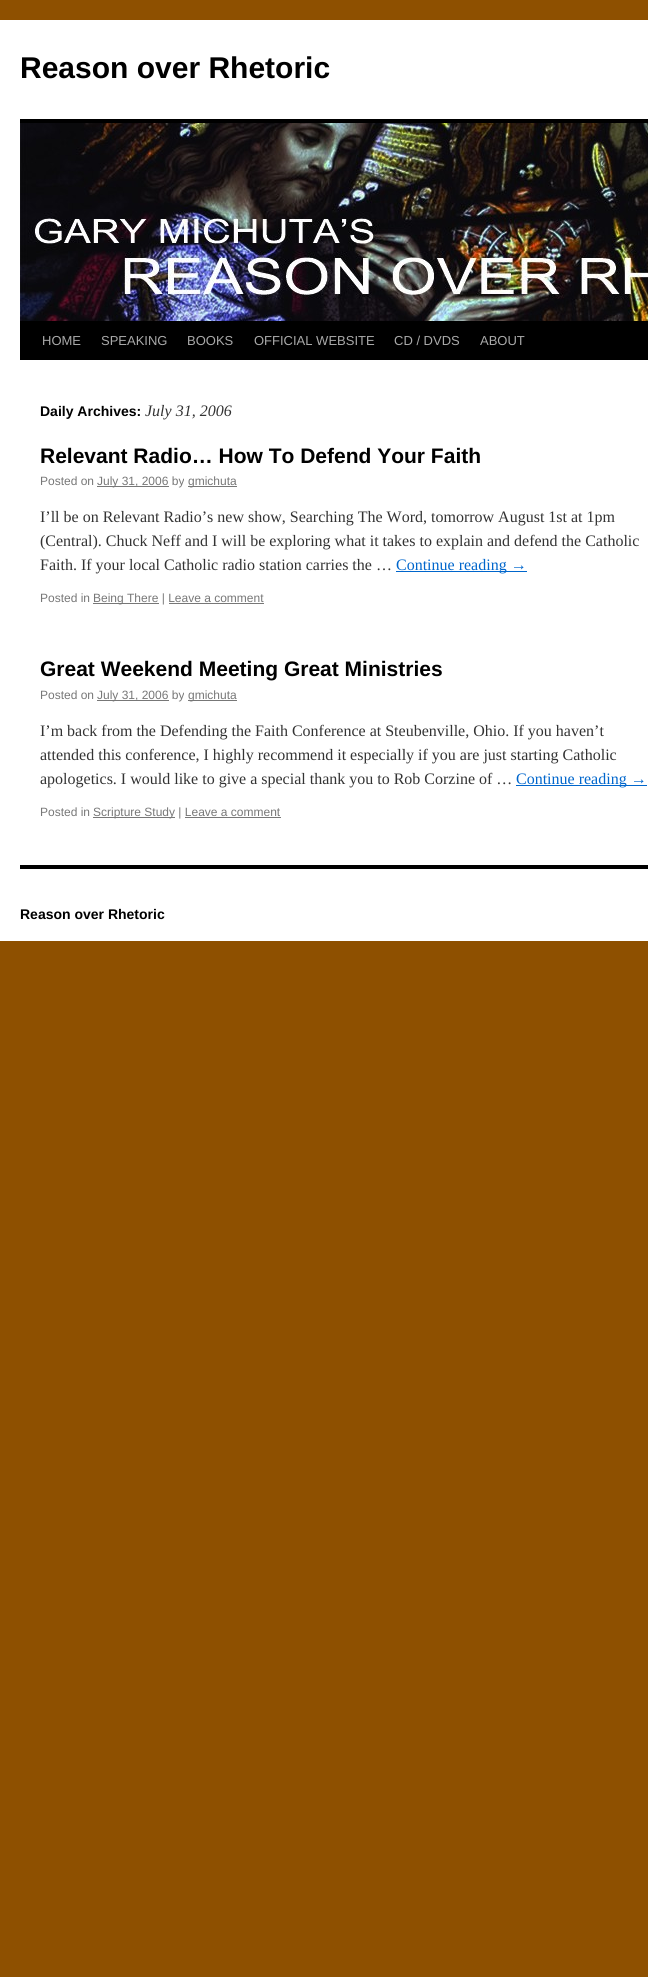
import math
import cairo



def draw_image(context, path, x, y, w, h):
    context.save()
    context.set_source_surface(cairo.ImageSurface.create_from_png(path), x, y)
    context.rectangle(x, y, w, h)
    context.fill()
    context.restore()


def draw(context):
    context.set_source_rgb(142 / 255, 80 / 255, 0)
    context.paint()
    context.set_source_rgb(1, 1, 1)
    context.rectangle(0, 20, 648, 921)
    context.fill()
    context.set_source_rgb(0, 0, 0)
    context.rectangle(20, 119, 628, 4)
    context.fill()
    context.rectangle(20, 321, 628, 39)
    context.fill()
    draw_image(context, "images/1.png", 20, 123, 628, 198)
    context.set_source_rgb(119 / 255, 119 / 255, 119 / 255)
    context.rectangle(97, 486, 72, 1)
    context.fill()
    context.rectangle(188, 486, 49, 1)
    context.fill()
    context.set_source_rgb(0, 102 / 255, 204 / 255)
    context.rectangle(396, 571, 131, 1)
    context.fill()
    context.set_source_rgb(119 / 255, 119 / 255, 119 / 255)
    context.rectangle(93, 603, 66, 1)
    context.fill()
    context.rectangle(169, 603, 95, 1)
    context.fill()
    context.rectangle(97, 700, 72, 1)
    context.fill()
    context.rectangle(188, 700, 49, 1)
    context.fill()
    context.set_source_rgb(0, 102 / 255, 204 / 255)
    context.rectangle(516, 785, 131, 1)
    context.fill()
    context.set_source_rgb(119 / 255, 119 / 255, 119 / 255)
    context.rectangle(93, 817, 82, 1)
    context.fill()
    context.rectangle(185, 817, 96, 1)
    context.fill()
    context.set_source_rgb(0, 0, 0)
    context.rectangle(20, 865, 628, 4)
    context.fill()
    context.select_font_face("Liberation Sans", cairo.FontSlant.NORMAL, cairo.FontWeight.BOLD)
    context.set_font_size(30)
    context.move_to(20, 78)
    context.show_text("Reason over Rhetoric")
    context.select_font_face("Liberation Sans")
    context.set_font_size(13)
    context.set_source_rgb(170 / 255, 170 / 255, 170 / 255)
    context.move_to(42, 345)
    context.show_text("HOME")
    context.move_to(101, 345)
    context.show_text("SPEAKING")
    context.move_to(187, 345)
    context.show_text("BOOKS")
    context.move_to(254, 345)
    context.show_text("OFFICIAL WEBSITE")
    context.move_to(394, 345)
    context.show_text("CD / DVDS")
    context.move_to(480, 345)
    context.show_text("ABOUT")
    context.select_font_face("Liberation Sans", cairo.FontSlant.NORMAL, cairo.FontWeight.BOLD)
    context.set_font_size(14)
    context.set_source_rgb(0, 0, 0)
    context.move_to(40, 416)
    context.show_text("Daily Archives:")
    context.select_font_face("Liberation Serif", cairo.FontSlant.ITALIC)
    context.set_font_size(16)
    context.set_source_rgb(51 / 255, 51 / 255, 51 / 255)
    context.move_to(145, 416)
    context.show_text("July 31, 2006")
    context.select_font_face("Liberation Sans", cairo.FontSlant.NORMAL, cairo.FontWeight.BOLD)
    context.set_font_size(21)
    context.set_source_rgb(0, 0, 0)
    context.move_to(40, 463)
    context.show_text("Relevant Radio… How To Defend Your Faith")
    context.select_font_face("Liberation Sans")
    context.set_font_size(12)
    context.set_source_rgb(119 / 255, 119 / 255, 119 / 255)
    context.move_to(40, 485)
    context.show_text("Posted on")
    context.move_to(97, 485)
    context.show_text("July 31, 2006 by")
    context.move_to(188, 485)
    context.show_text("gmichuta")
    context.select_font_face("Liberation Serif")
    context.set_font_size(16)
    context.set_source_rgb(51 / 255, 51 / 255, 51 / 255)
    context.move_to(40, 522)
    context.show_text("I’ll be on Relevant Radio’s new show, Searching The Word, tomorrow August 1st at 1pm")
    context.move_to(40, 546)
    context.show_text("(Central). Chuck Neff and I will be exploring what it takes to explain and defend the Catholic")
    context.move_to(40, 570)
    context.show_text("Faith. If your local Catholic radio station carries the …")
    context.set_source_rgb(0, 102 / 255, 204 / 255)
    context.move_to(396, 570)
    context.show_text("Continue reading →")
    context.select_font_face("Liberation Sans")
    context.set_font_size(12)
    context.set_source_rgb(119 / 255, 119 / 255, 119 / 255)
    context.move_to(40, 602)
    context.show_text("Posted in")
    context.move_to(93, 602)
    context.show_text("Being There | Leave a comment")
    context.select_font_face("Liberation Sans", cairo.FontSlant.NORMAL, cairo.FontWeight.BOLD)
    context.set_font_size(21)
    context.set_source_rgb(0, 0, 0)
    context.move_to(40, 676)
    context.show_text("Great Weekend Meeting Great Ministries")
    context.select_font_face("Liberation Sans")
    context.set_font_size(12)
    context.set_source_rgb(119 / 255, 119 / 255, 119 / 255)
    context.move_to(40, 699)
    context.show_text("Posted on")
    context.move_to(97, 699)
    context.show_text("July 31, 2006 by")
    context.move_to(188, 699)
    context.show_text("gmichuta")
    context.select_font_face("Liberation Serif")
    context.set_font_size(16)
    context.set_source_rgb(51 / 255, 51 / 255, 51 / 255)
    context.move_to(40, 736)
    context.show_text("I’m back from the Defending the Faith Conference at Steubenville, Ohio. If you haven’t")
    context.move_to(40, 760)
    context.show_text("attended this conference, I highly recommend it especially if you are just starting Catholic")
    context.move_to(40, 784)
    context.show_text("apologetics. I would like to give a special thank you to Rob Corzine of …")
    context.set_source_rgb(0, 102 / 255, 204 / 255)
    context.move_to(516, 784)
    context.show_text("Continue reading →")
    context.select_font_face("Liberation Sans")
    context.set_font_size(12)
    context.set_source_rgb(119 / 255, 119 / 255, 119 / 255)
    context.move_to(40, 816)
    context.show_text("Posted in")
    context.move_to(93, 816)
    context.show_text("Scripture Study | Leave a comment")
    context.select_font_face("Liberation Sans", cairo.FontSlant.NORMAL, cairo.FontWeight.BOLD)
    context.set_font_size(14)
    context.set_source_rgb(0, 0, 0)
    context.move_to(20, 919)
    context.show_text("Reason over Rhetoric")


surface = cairo.ImageSurface(cairo.Format.RGB24, 648, 1977)
context = cairo.Context(surface)
options = cairo.FontOptions()
options.set_hint_metrics(cairo.HintMetrics.OFF)
options.set_hint_style(cairo.HintStyle.NONE)
context.set_font_options(options)
context.set_miter_limit(4)
draw(context)
surface.write_to_png("out.png")
